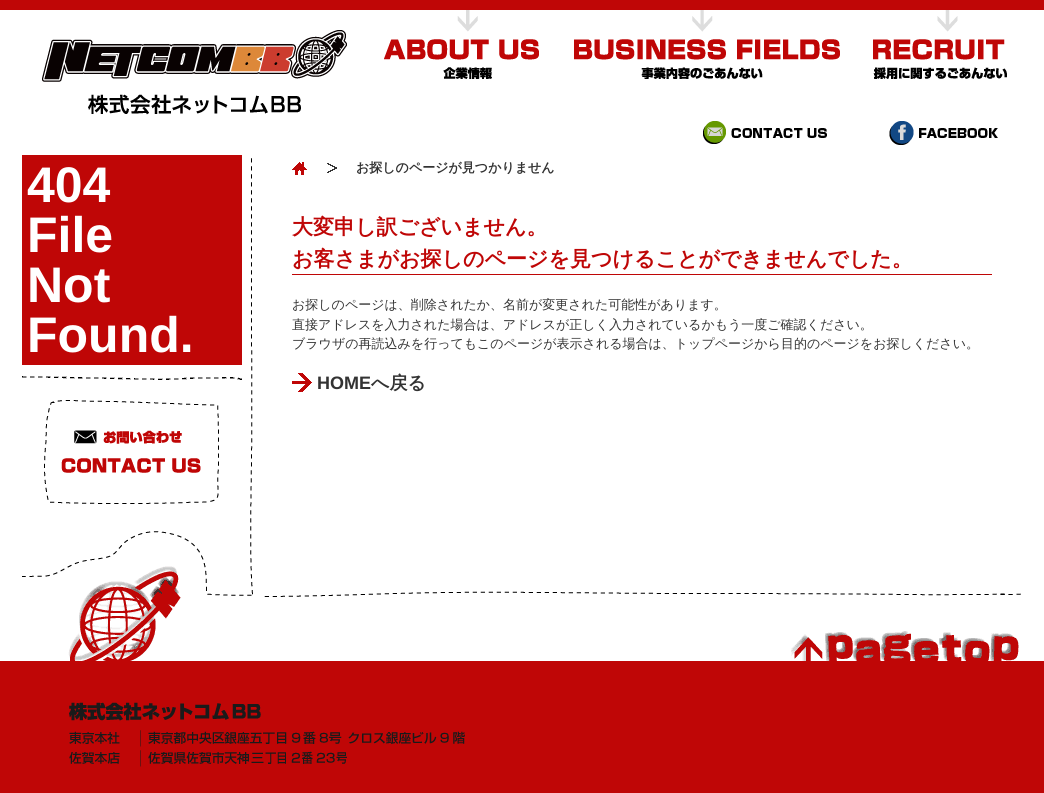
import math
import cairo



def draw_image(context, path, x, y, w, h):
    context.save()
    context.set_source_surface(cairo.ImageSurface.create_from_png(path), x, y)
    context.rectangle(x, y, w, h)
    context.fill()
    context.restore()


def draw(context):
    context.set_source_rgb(1, 1, 1)
    context.paint()
    context.set_source_rgb(191 / 255, 6 / 255, 6 / 255)
    context.rectangle(0, 0, 1044, 10)
    context.fill()
    draw_image(context, "images/1.png", 42, 30, 305, 85)
    draw_image(context, "images/2.png", 384, 10, 155, 69)
    draw_image(context, "images/3.png", 574, 10, 266, 69)
    draw_image(context, "images/4.png", 873, 10, 134, 69)
    draw_image(context, "images/5.png", 703, 121, 124, 23)
    draw_image(context, "images/6.png", 889, 121, 109, 24)
    draw_image(context, "images/7.png", 22, 158, 999, 439)
    draw_image(context, "images/8.png", 22, 376, 220, 4)
    context.rectangle(22, 155, 220, 210)
    context.fill()
    draw_image(context, "images/9.png", 44, 400, 175, 104)
    draw_image(context, "images/10.png", 292, 162, 15, 13)
    draw_image(context, "images/11.png", 327, 163, 10, 10)
    context.rectangle(292, 274, 700, 1)
    context.fill()
    draw_image(context, "images/12.png", 292, 373, 20, 19)
    draw_image(context, "images/13.png", 68, 566, 113, 95)
    draw_image(context, "images/14.png", 791, 631, 228, 30)
    context.rectangle(0, 661, 1044, 132)
    context.fill()
    draw_image(context, "images/15.png", 69, 702, 396, 65)
    context.select_font_face("Liberation Sans", cairo.FontSlant.NORMAL, cairo.FontWeight.BOLD)
    context.set_font_size(50)
    context.set_source_rgb(1, 1, 1)
    context.move_to(27, 202)
    context.show_text("404")
    context.move_to(27, 252)
    context.show_text("File")
    context.move_to(27, 302)
    context.show_text("Not")
    context.move_to(27, 352)
    context.show_text("Found.")
    context.select_font_face("WenQuanYi Zen Hei", cairo.FontSlant.NORMAL, cairo.FontWeight.BOLD)
    context.set_font_size(13)
    context.set_source_rgb(51 / 255, 51 / 255, 51 / 255)
    context.move_to(356, 172)
    context.show_text("お探しのページが見つかりません")
    context.set_font_size(21)
    context.set_source_rgb(191 / 255, 6 / 255, 6 / 255)
    context.move_to(292, 234)
    context.show_text("大変申し訳ございません。")
    context.move_to(292, 266)
    context.show_text("お客さまがお探しのページを見つけることができませんでした。")
    context.select_font_face("WenQuanYi Zen Hei Medium")
    context.set_font_size(13)
    context.set_source_rgb(51 / 255, 51 / 255, 51 / 255)
    context.move_to(292, 309)
    context.show_text("お探しのページは、削除されたか、名前が変更された可能性があります。")
    context.move_to(292, 329)
    context.show_text("直接アドレスを入力された場合は、アドレスが正しく入力されているかもう一度ご確認ください。")
    context.move_to(292, 348)
    context.show_text("ブラウザの再読込みを行ってもこのページが表示される場合は、トップページから目的のページをお探しください。")
    context.select_font_face("Liberation Sans", cairo.FontSlant.NORMAL, cairo.FontWeight.BOLD)
    context.set_font_size(18)
    context.move_to(317, 389)
    context.show_text("HOME")
    context.select_font_face("WenQuanYi Zen Hei", cairo.FontSlant.NORMAL, cairo.FontWeight.BOLD)
    context.move_to(371, 389)
    context.show_text("へ戻る")


surface = cairo.ImageSurface(cairo.Format.RGB24, 1044, 793)
context = cairo.Context(surface)
options = cairo.FontOptions()
options.set_hint_metrics(cairo.HintMetrics.OFF)
options.set_hint_style(cairo.HintStyle.NONE)
context.set_font_options(options)
context.set_miter_limit(4)
draw(context)
surface.write_to_png("out.png")
